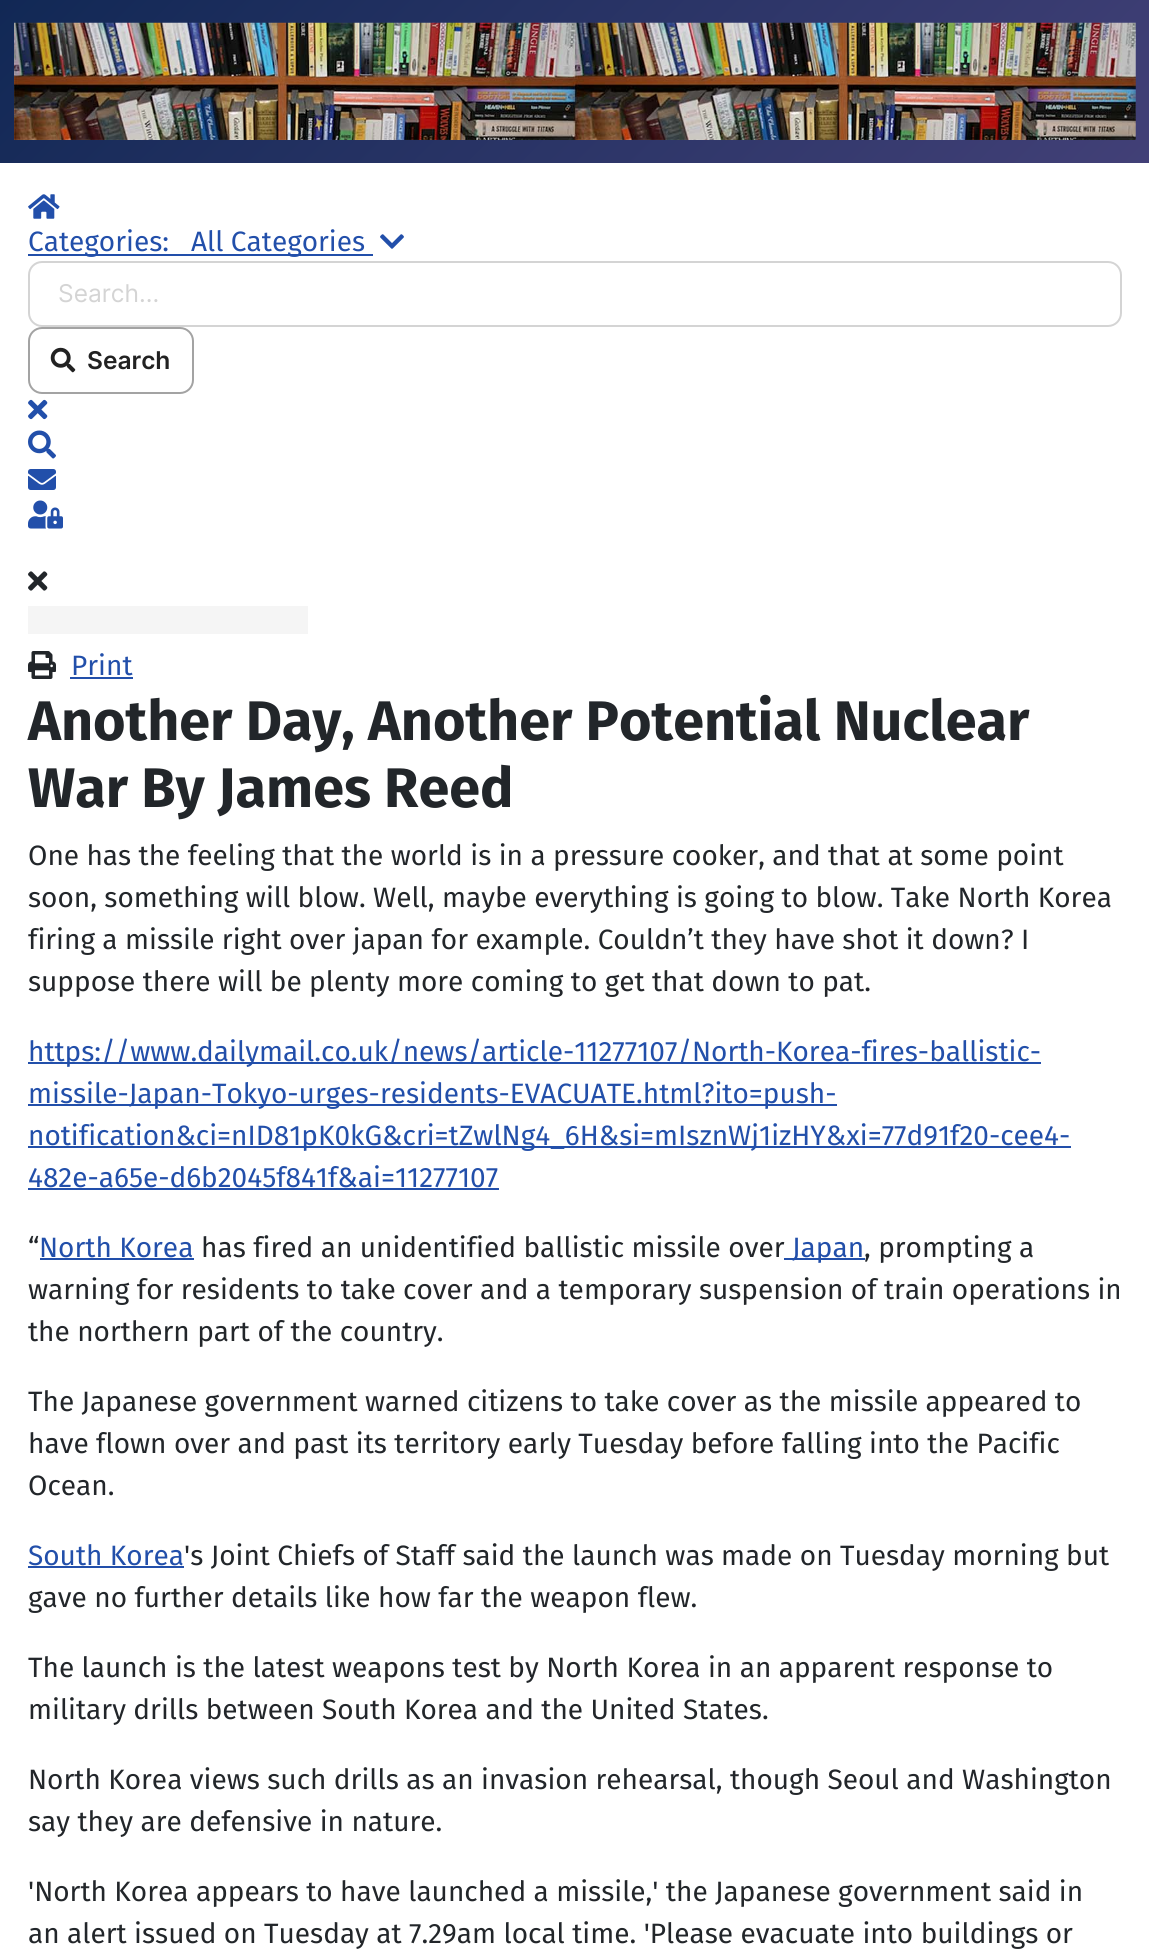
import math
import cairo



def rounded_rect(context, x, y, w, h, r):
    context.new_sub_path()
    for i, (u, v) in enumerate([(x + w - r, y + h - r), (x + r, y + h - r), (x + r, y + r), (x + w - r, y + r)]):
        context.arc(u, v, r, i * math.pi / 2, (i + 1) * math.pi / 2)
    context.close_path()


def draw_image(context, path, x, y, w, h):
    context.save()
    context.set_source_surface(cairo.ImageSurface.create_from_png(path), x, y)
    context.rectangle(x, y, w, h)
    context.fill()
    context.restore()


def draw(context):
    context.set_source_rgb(1, 1, 1)
    context.paint()
    gradient = cairo.LinearGradient(247, -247, 903, 410)
    gradient.add_color_stop_rgba(0, 17 / 255, 40 / 255, 85 / 255, 1)
    gradient.add_color_stop_rgba(1, 66 / 255, 64 / 255, 119 / 255, 1)
    context.set_source(gradient)
    context.rectangle(0, 0, 1149, 163)
    context.fill()
    draw_image(context, "images/1.png", 14, 22, 1122, 118)
    draw_image(context, "images/2.png", 28, 194, 32, 25)
    context.set_source_rgb(34 / 255, 79 / 255, 170 / 255)
    context.rectangle(28, 254, 345, 2)
    context.fill()
    draw_image(context, "images/3.png", 380, 234, 24, 15)
    rounded_rect(context, 29, 262, 1092, 64, 13)
    context.set_source_rgb(212 / 255, 212 / 255, 212 / 255)
    context.stroke()
    rounded_rect(context, 29, 328, 164, 65, 13)
    context.set_source_rgb(163 / 255, 163 / 255, 163 / 255)
    context.stroke()
    draw_image(context, "images/4.png", 50, 347, 26, 26)
    draw_image(context, "images/5.png", 28, 399, 20, 21)
    draw_image(context, "images/6.png", 28, 430, 28, 29)
    draw_image(context, "images/7.png", 28, 469, 28, 21)
    draw_image(context, "images/8.png", 28, 500, 35, 29)
    draw_image(context, "images/9.png", 28, 571, 20, 20)
    context.set_source_rgb(245 / 255, 245 / 255, 245 / 255)
    context.rectangle(28, 606, 280, 28)
    context.fill()
    draw_image(context, "images/10.png", 28, 651, 28, 28)
    context.set_source_rgb(34 / 255, 79 / 255, 170 / 255)
    context.rectangle(70, 677, 63, 2)
    context.fill()
    context.rectangle(28, 1062, 1013, 2)
    context.fill()
    context.rectangle(28, 1104, 809, 2)
    context.fill()
    context.rectangle(28, 1146, 1043, 2)
    context.fill()
    context.rectangle(28, 1188, 471, 2)
    context.fill()
    context.rectangle(40, 1258, 154, 2)
    context.fill()
    context.rectangle(784, 1258, 81, 2)
    context.fill()
    context.rectangle(28, 1566, 156, 2)
    context.fill()
    context.select_font_face("Fira Sans")
    context.set_font_size(28)
    context.move_to(28, 251)
    context.show_text("Categories:")
    context.move_to(191, 251)
    context.show_text("All Categories")
    context.select_font_face("Inter")
    context.set_font_size(24.5)
    context.set_source_rgb(212 / 255, 212 / 255, 212 / 255)
    context.move_to(58, 302)
    context.show_text("Search...")
    context.select_font_face("Inter SemiBold")
    context.set_source_rgb(34 / 255, 34 / 255, 34 / 255)
    context.move_to(87, 369)
    context.show_text("Search")
    context.select_font_face("Fira Sans")
    context.set_font_size(28)
    context.set_source_rgb(34 / 255, 79 / 255, 170 / 255)
    context.move_to(71, 675)
    context.show_text("Print")
    context.select_font_face("Fira Sans", cairo.FontSlant.NORMAL, cairo.FontWeight.BOLD)
    context.set_font_size(55.75)
    context.set_source_rgb(34 / 255, 38 / 255, 42 / 255)
    context.move_to(28, 740)
    context.show_text("Another Day, Another Potential Nuclear")
    context.move_to(28, 807)
    context.show_text("War By James Reed")
    context.select_font_face("Fira Sans")
    context.set_font_size(28)
    context.move_to(28, 865)
    context.show_text("One has the feeling that the world is in a pressure cooker, and that at some point")
    context.move_to(28, 907)
    context.show_text("soon, something will blow. Well, maybe everything is going to blow. Take North Korea")
    context.move_to(28, 949)
    context.show_text("firing a missile right over japan for example. Couldn’t they have shot it down? I")
    context.move_to(28, 991)
    context.show_text("suppose there will be plenty more coming to get that down to pat.")
    context.set_source_rgb(34 / 255, 79 / 255, 170 / 255)
    context.move_to(28, 1061)
    context.show_text("https://www.dailymail.co.uk/news/article-11277107/North-Korea-fires-ballistic-")
    context.move_to(28, 1103)
    context.show_text("missile-Japan-Tokyo-urges-residents-EVACUATE.html?ito=push-")
    context.move_to(28, 1145)
    context.show_text("notification&ci=nID81pK0kG&cri=tZwlNg4_6H&si=mIsznWj1izHY&xi=77d91f20-cee4-")
    context.move_to(28, 1187)
    context.show_text("482e-a65e-d6b2045f841f&ai=11277107")
    context.set_source_rgb(34 / 255, 38 / 255, 42 / 255)
    context.move_to(28, 1257)
    context.show_text("“")
    context.set_source_rgb(34 / 255, 79 / 255, 170 / 255)
    context.move_to(39, 1257)
    context.show_text("North Korea")
    context.set_source_rgb(34 / 255, 38 / 255, 42 / 255)
    context.move_to(201, 1257)
    context.show_text("has fired an unidentified ballistic missile over")
    context.set_source_rgb(34 / 255, 79 / 255, 170 / 255)
    context.move_to(792, 1257)
    context.show_text("Japan")
    context.set_source_rgb(34 / 255, 38 / 255, 42 / 255)
    context.move_to(864, 1257)
    context.show_text(", prompting a")
    context.move_to(28, 1299)
    context.show_text("warning for residents to take cover and a temporary suspension of train operations in")
    context.move_to(28, 1341)
    context.show_text("the northern part of the country.")
    context.move_to(28, 1411)
    context.show_text("The Japanese government warned citizens to take cover as the missile appeared to")
    context.move_to(28, 1453)
    context.show_text("have flown over and past its territory early Tuesday before falling into the Pacific")
    context.move_to(28, 1495)
    context.show_text("Ocean.")
    context.set_source_rgb(34 / 255, 79 / 255, 170 / 255)
    context.move_to(28, 1565)
    context.show_text("South Korea")
    context.set_source_rgb(34 / 255, 38 / 255, 42 / 255)
    context.move_to(184, 1565)
    context.show_text("'s Joint Chiefs of Staff said the launch was made on Tuesday morning but")
    context.move_to(28, 1607)
    context.show_text("gave no further details like how far the weapon flew.")
    context.move_to(28, 1677)
    context.show_text("The launch is the latest weapons test by North Korea in an apparent response to")
    context.move_to(28, 1719)
    context.show_text("military drills between South Korea and the United States.")
    context.move_to(28, 1789)
    context.show_text("North Korea views such drills as an invasion rehearsal, though Seoul and Washington")
    context.move_to(28, 1831)
    context.show_text("say they are defensive in nature.")
    context.move_to(28, 1901)
    context.show_text("'North Korea appears to have launched a missile,' the Japanese government said in")
    context.move_to(28, 1943)
    context.show_text("an alert issued on Tuesday at 7.29am local time. 'Please evacuate into buildings or")


surface = cairo.ImageSurface(cairo.Format.RGB24, 1149, 1951)
context = cairo.Context(surface)
options = cairo.FontOptions()
options.set_hint_metrics(cairo.HintMetrics.OFF)
options.set_hint_style(cairo.HintStyle.NONE)
context.set_font_options(options)
context.set_miter_limit(4)
draw(context)
surface.write_to_png("out.png")
